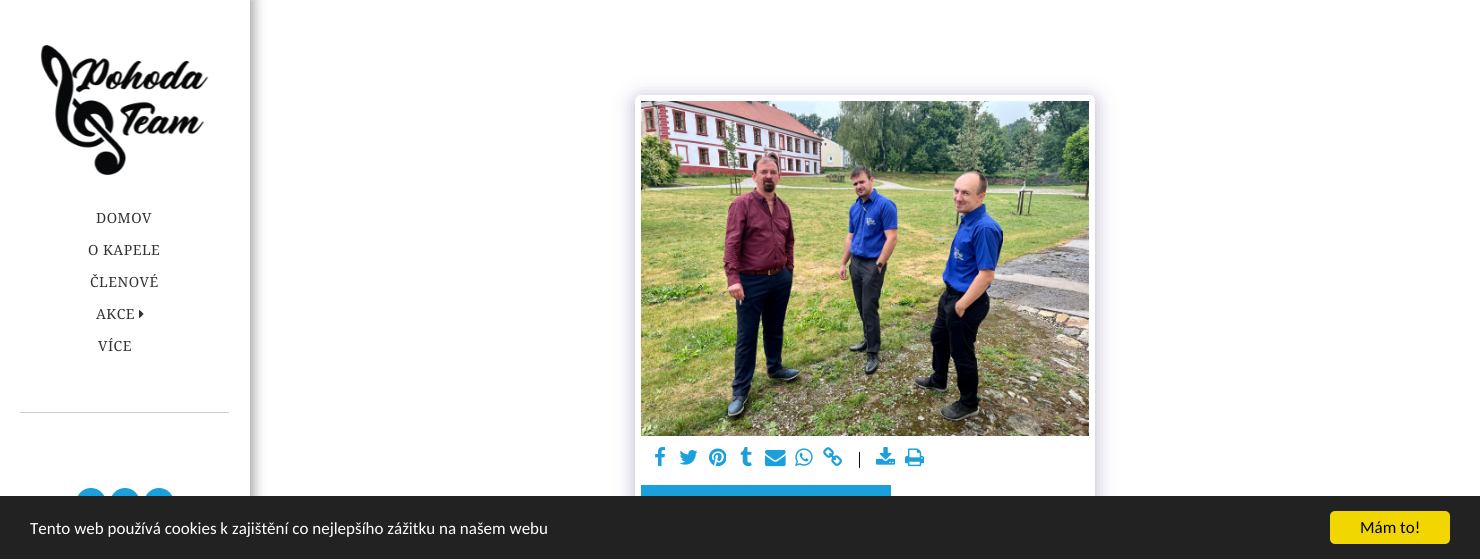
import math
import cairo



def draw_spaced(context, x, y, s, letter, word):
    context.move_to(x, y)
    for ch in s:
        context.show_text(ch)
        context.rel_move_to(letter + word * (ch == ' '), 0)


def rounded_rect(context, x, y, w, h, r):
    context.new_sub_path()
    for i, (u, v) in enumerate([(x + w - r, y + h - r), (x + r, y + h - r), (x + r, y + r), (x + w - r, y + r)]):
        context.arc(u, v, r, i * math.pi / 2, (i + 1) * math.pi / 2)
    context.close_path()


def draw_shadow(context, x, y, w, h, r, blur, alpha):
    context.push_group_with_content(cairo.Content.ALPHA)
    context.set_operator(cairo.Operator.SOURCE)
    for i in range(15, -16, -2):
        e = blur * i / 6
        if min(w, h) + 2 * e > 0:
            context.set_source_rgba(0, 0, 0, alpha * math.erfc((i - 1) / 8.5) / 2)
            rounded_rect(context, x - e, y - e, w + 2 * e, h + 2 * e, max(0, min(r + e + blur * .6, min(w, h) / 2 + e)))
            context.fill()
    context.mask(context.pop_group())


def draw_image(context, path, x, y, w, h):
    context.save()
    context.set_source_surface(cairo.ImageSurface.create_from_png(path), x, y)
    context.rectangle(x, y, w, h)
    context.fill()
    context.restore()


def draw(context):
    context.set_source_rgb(1, 1, 1)
    context.paint()
    context.set_source_rgb(0, 0, 0)
    draw_shadow(context, 0, -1, 254, 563, 0, 6, 0.35)
    context.set_source_rgb(1, 1, 1)
    context.rectangle(0, 0, 250, 496)
    context.fill()
    draw_image(context, "images/1.png", 40, 45, 169, 130)
    draw_image(context, "images/2.png", 139, 310, 5, 8)
    context.set_source_rgb(204 / 255, 204 / 255, 204 / 255)
    context.rectangle(20, 412, 209, 1)
    context.fill()
    context.set_source_rgb(27 / 255, 160 / 255, 219 / 255)
    context.arc(91, 503, 15, 0, 2 * math.pi)
    context.fill()
    context.arc(125, 503, 15, 0, 2 * math.pi)
    context.fill()
    context.arc(159, 503, 15, 0, 2 * math.pi)
    context.fill()
    context.set_source_rgb(77 / 255, 63 / 255, 122 / 255)
    draw_shadow(context, 635, 98, 460, 447, 6, 10, 0.4)
    context.set_source_rgb(1, 1, 1)
    rounded_rect(context, 635, 95, 460, 447, 6)
    context.fill()
    draw_image(context, "images/3.png", 641, 101, 448, 335)
    draw_image(context, "images/4.png", 655, 447, 11, 20)
    draw_image(context, "images/5.png", 679, 450, 19, 15)
    draw_image(context, "images/6.png", 709, 448, 17, 19)
    draw_image(context, "images/7.png", 740, 447, 12, 20)
    draw_image(context, "images/8.png", 765, 449, 21, 18)
    draw_image(context, "images/9.png", 795, 448, 18, 19)
    draw_image(context, "images/10.png", 823, 447, 19, 19)
    draw_image(context, "images/11.png", 876, 447, 19, 18)
    draw_image(context, "images/12.png", 905, 448, 19, 19)
    context.set_source_rgb(27 / 255, 160 / 255, 219 / 255)
    context.rectangle(641, 485, 250, 11)
    context.fill()
    context.set_source_rgb(34 / 255, 34 / 255, 34 / 255)
    context.rectangle(0, 496, 1480, 63)
    context.fill()
    context.set_source_rgb(241 / 255, 214 / 255, 0)
    rounded_rect(context, 1330, 511, 120, 33, 5)
    context.fill()
    context.select_font_face("Noto Serif")
    context.set_font_size(14)
    context.set_source_rgb(51 / 255, 51 / 255, 51 / 255)
    draw_spaced(context, 96, 223, "DOMOV", 0.5, 0)
    draw_spaced(context, 88, 255, "O KAPELE", 0.5, 0)
    draw_spaced(context, 90, 287, "ČLENOVÉ", 0.5, 0)
    draw_spaced(context, 96, 319, "AKCE", 0.5, 0)
    draw_spaced(context, 98, 351, "VÍCE", 0.5, 0)
    context.set_font_size(16)
    context.set_source_rgb(0, 0, 0)
    context.move_to(855, 464)
    context.show_text("|")
    context.select_font_face("Carlito")
    context.set_font_size(17)
    context.set_source_rgb(1, 1, 1)
    context.move_to(30, 534)
    context.show_text("Tento web používá cookies k zajištění co nejlepšího zážitku na našem webu")
    context.set_source_rgb(0, 0, 0)
    context.move_to(1360, 533)
    context.show_text("Mám to!")


surface = cairo.ImageSurface(cairo.Format.RGB24, 1480, 559)
context = cairo.Context(surface)
options = cairo.FontOptions()
options.set_hint_metrics(cairo.HintMetrics.OFF)
options.set_hint_style(cairo.HintStyle.NONE)
context.set_font_options(options)
context.set_miter_limit(4)
draw(context)
surface.write_to_png("out.png")
